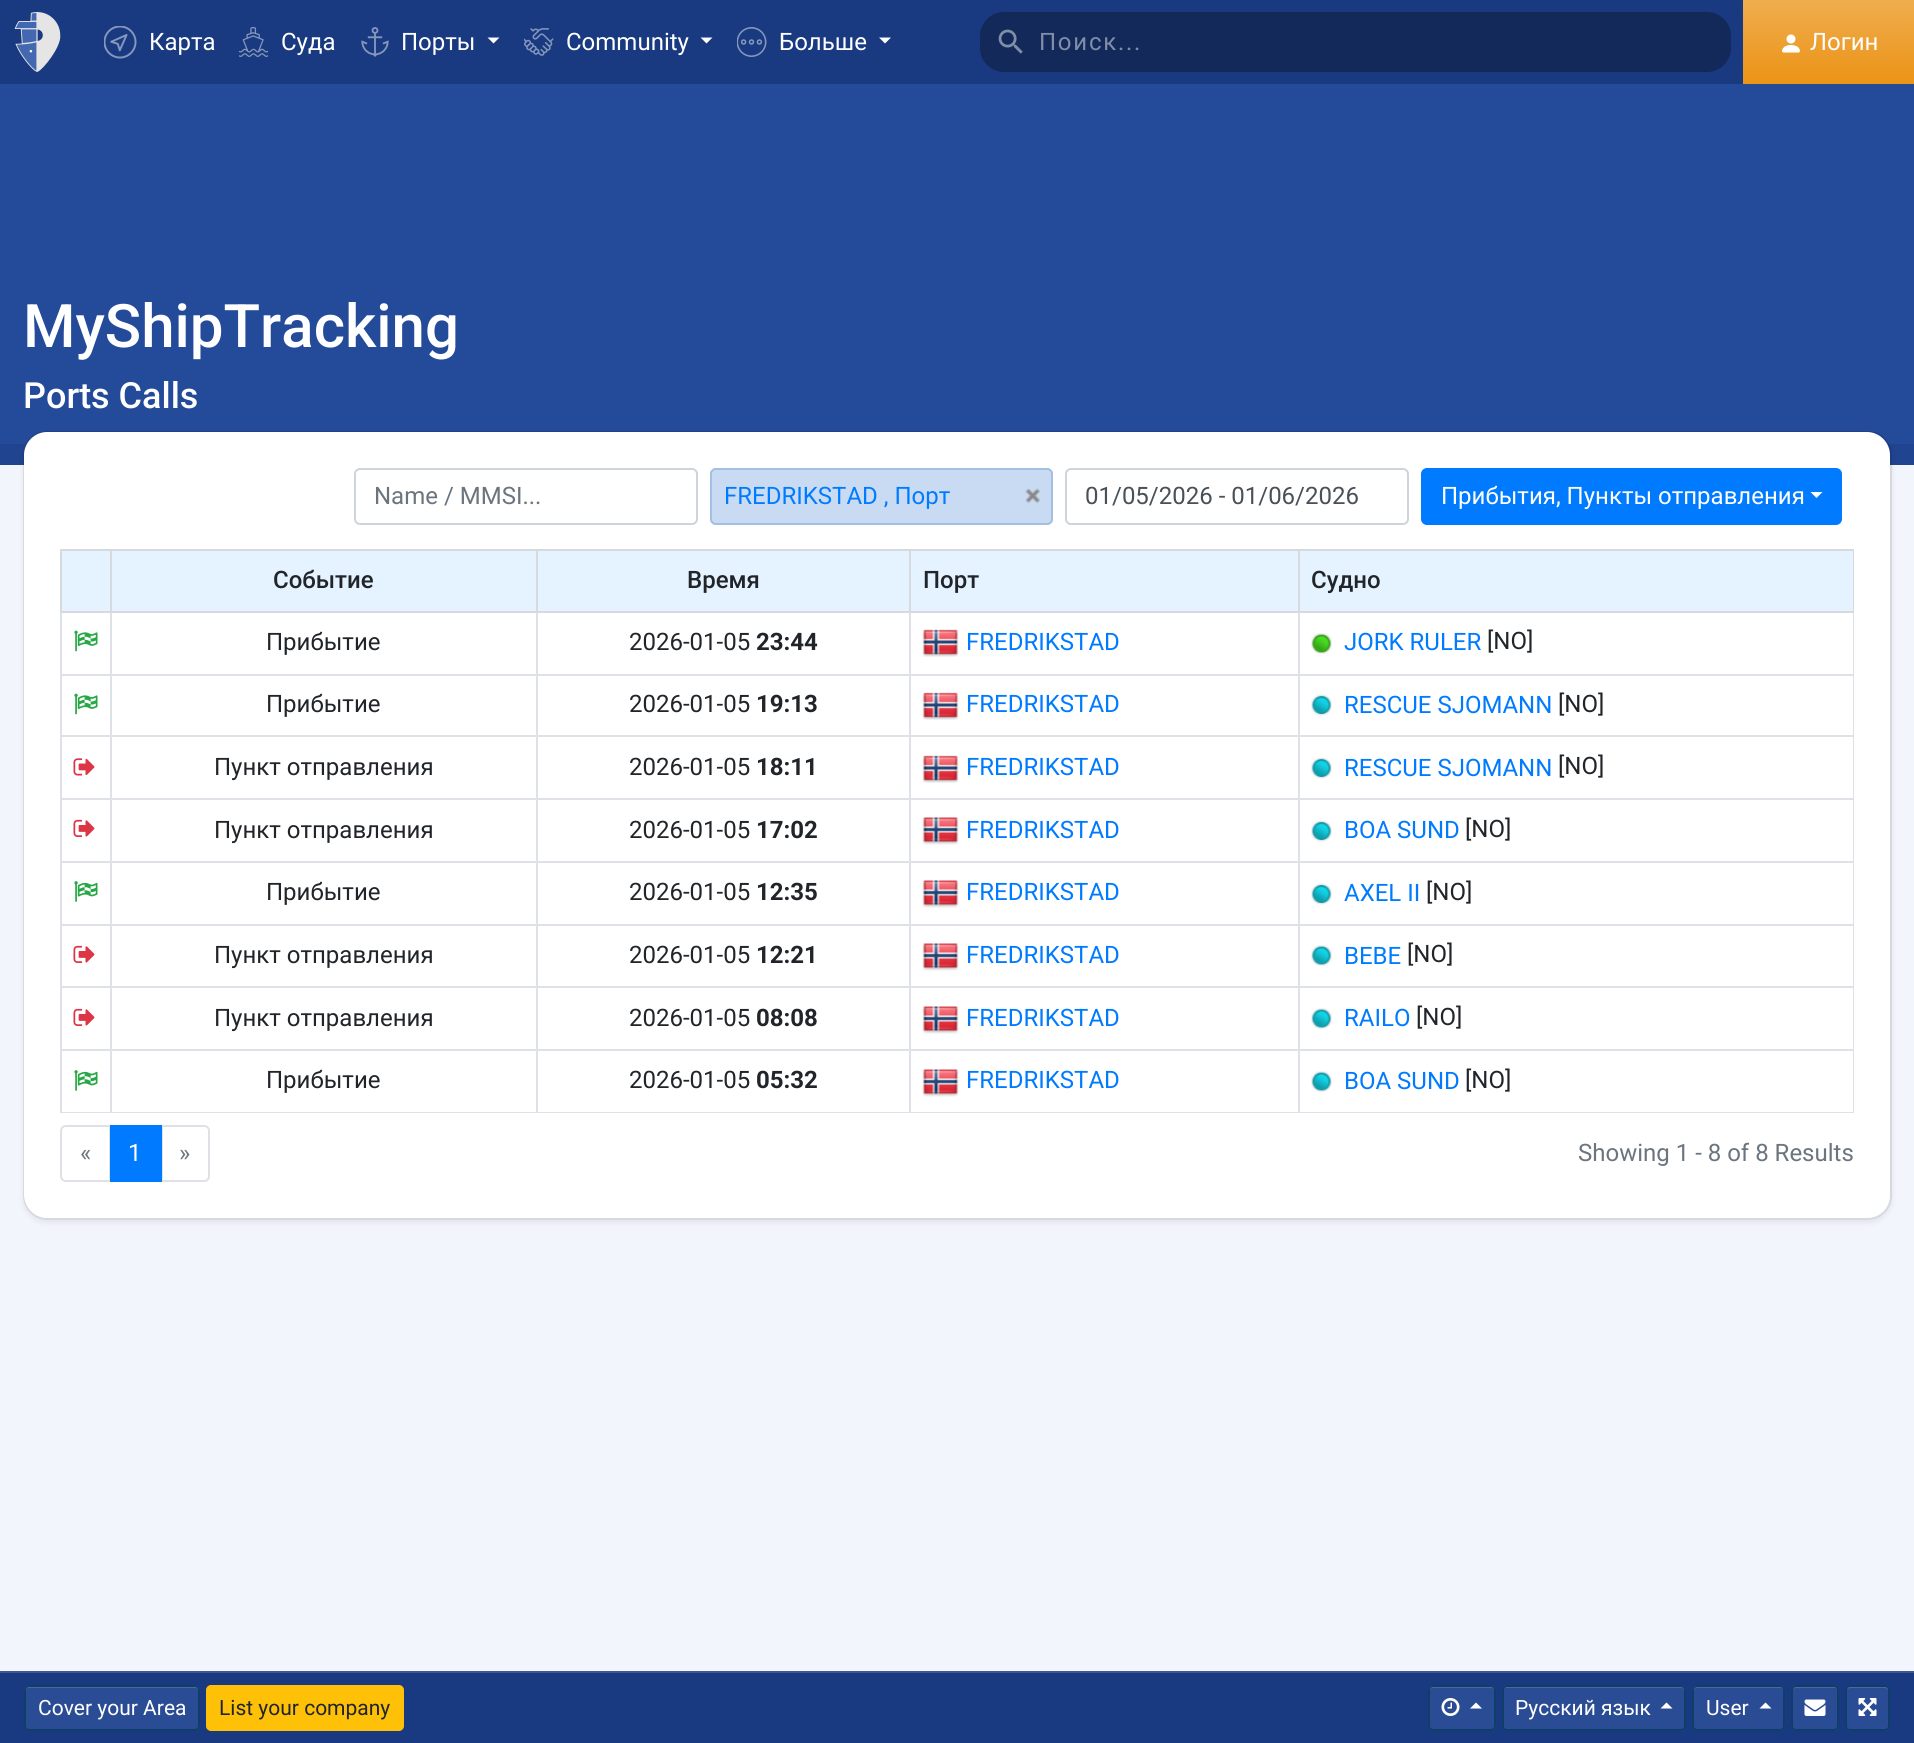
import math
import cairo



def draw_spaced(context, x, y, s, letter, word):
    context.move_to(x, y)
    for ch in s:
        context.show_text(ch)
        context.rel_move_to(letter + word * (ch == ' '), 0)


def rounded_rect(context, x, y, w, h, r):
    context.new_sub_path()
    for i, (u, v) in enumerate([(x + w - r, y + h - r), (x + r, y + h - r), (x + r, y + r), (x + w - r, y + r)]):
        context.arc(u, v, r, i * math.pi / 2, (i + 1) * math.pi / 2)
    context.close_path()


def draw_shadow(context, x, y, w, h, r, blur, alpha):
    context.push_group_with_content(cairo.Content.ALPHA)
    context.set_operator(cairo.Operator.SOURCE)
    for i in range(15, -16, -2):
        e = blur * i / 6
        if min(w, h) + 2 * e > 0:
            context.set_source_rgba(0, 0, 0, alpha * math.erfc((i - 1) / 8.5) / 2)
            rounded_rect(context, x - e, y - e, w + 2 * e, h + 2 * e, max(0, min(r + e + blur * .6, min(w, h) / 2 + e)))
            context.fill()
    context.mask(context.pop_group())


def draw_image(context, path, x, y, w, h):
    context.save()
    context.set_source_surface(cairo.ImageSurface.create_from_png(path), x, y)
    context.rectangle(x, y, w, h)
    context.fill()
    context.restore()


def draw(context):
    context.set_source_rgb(242 / 255, 246 / 255, 252 / 255)
    context.paint()
    context.set_source_rgb(25 / 255, 58 / 255, 128 / 255)
    context.rectangle(0, 0, 1743, 84)
    context.fill()
    draw_image(context, "images/1.png", 14, 12, 47, 60)
    draw_image(context, "images/2.png", 104, 26, 33, 33)
    draw_image(context, "images/3.png", 239, 27, 30, 30)
    draw_image(context, "images/4.png", 361, 27, 28, 30)
    context.set_source_rgb(1, 1, 1)
    context.new_path()
    context.move_to(487.5, 37.5)
    context.line_to(499.5, 37.5)
    context.line_to(493.5, 43.5)
    context.close_path()
    context.fill()
    draw_image(context, "images/5.png", 524, 28, 30, 28)
    context.new_path()
    context.move_to(700.5, 37.5)
    context.line_to(712.5, 37.5)
    context.line_to(706.5, 43.5)
    context.close_path()
    context.fill()
    draw_image(context, "images/6.png", 737, 27, 30, 30)
    context.new_path()
    context.move_to(879, 37.5)
    context.line_to(891, 37.5)
    context.line_to(885, 43.5)
    context.close_path()
    context.fill()
    context.set_source_rgb(18 / 255, 41 / 255, 90 / 255)
    rounded_rect(context, 980, 12, 751, 60, 24)
    context.fill()
    draw_image(context, "images/7.png", 998, 29, 25, 25)
    gradient = cairo.LinearGradient(1829, 0, 1829, 84)
    gradient.add_color_stop_rgba(0, 240 / 255, 173 / 255, 78 / 255, 1)
    gradient.add_color_stop_rgba(1, 235 / 255, 147 / 255, 22 / 255, 1)
    context.set_source(gradient)
    context.rectangle(1743, 0, 171, 84)
    context.fill()
    draw_image(context, "images/8.png", 1782, 34, 18, 19)
    context.set_source_rgb(36 / 255, 74 / 255, 154 / 255)
    context.rectangle(0, 84, 1914, 360)
    context.fill()
    context.set_source_rgb(32 / 255, 68 / 255, 144 / 255)
    context.rectangle(0, 444, 1914, 21)
    context.fill()
    context.save()
    context.set_fill_rule(cairo.FillRule.EVEN_ODD)
    context.new_path()
    context.move_to(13, 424)
    context.line_to(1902, 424)
    context.line_to(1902, 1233)
    context.line_to(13, 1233)
    context.close_path()
    context.move_to(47, 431)
    context.line_to(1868, 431)
    context.curve_to(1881.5, 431, 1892, 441.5, 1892, 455)
    context.line_to(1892, 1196)
    context.curve_to(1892, 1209.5, 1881.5, 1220, 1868, 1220)
    context.line_to(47, 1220)
    context.curve_to(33.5, 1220, 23, 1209.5, 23, 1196)
    context.line_to(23, 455)
    context.curve_to(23, 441.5, 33.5, 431, 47, 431)
    context.close_path()
    context.clip()
    context.set_source_rgb(0, 0, 0)
    draw_shadow(context, 23, 434, 1869, 789, 24, 3, 0.07)
    context.restore()
    rounded_rect(context, 24, 432, 1867, 787, 23)
    context.set_source_rgba(0, 0, 0, 0.12)
    context.stroke()
    context.save()
    rounded_rect(context, 24, 432, 1866, 786, 23)
    context.clip()
    context.set_source_rgb(1, 1, 1)
    context.new_path()
    context.move_to(47, 432)
    context.line_to(1867, 432)
    context.curve_to(1879.5, 432, 1890, 442.5, 1890, 455)
    context.line_to(1890, 1194)
    context.curve_to(1890, 1207.5, 1879.5, 1218, 1866, 1218)
    context.line_to(48, 1218)
    context.curve_to(34.5, 1218, 24, 1207.5, 24, 1194)
    context.line_to(24, 455)
    context.curve_to(24, 442.5, 34.5, 432, 47, 432)
    context.close_path()
    context.fill()
    context.restore()
    rounded_rect(context, 355, 469, 342, 55, 5)
    context.set_source_rgb(206 / 255, 212 / 255, 218 / 255)
    context.stroke()
    rounded_rect(context, 711, 469, 341, 55, 5)
    context.stroke()
    context.set_source_rgb(201 / 255, 219 / 255, 243 / 255)
    rounded_rect(context, 711, 469, 341, 55, 5)
    context.fill_preserve()
    context.set_source_rgb(162 / 255, 192 / 255, 228 / 255)
    context.stroke()
    draw_image(context, "images/9.png", 1025, 488, 15, 15)
    rounded_rect(context, 1066, 469, 342, 55, 5)
    context.set_source_rgb(206 / 255, 212 / 255, 218 / 255)
    context.stroke()
    context.set_source_rgb(0, 123 / 255, 1)
    rounded_rect(context, 1422, 469, 419, 55, 5)
    context.fill_preserve()
    context.stroke()
    context.set_source_rgb(1, 1, 1)
    context.new_path()
    context.move_to(1810.5, 492)
    context.line_to(1822.5, 492)
    context.line_to(1816.5, 498)
    context.close_path()
    context.fill()
    context.set_source_rgb(222 / 255, 226 / 255, 230 / 255)
    context.rectangle(1853, 613, 1, 500)
    context.fill()
    context.rectangle(60, 613, 2, 500)
    context.fill()
    context.set_source_rgb(229 / 255, 242 / 255, 1)
    context.rectangle(62, 551, 48, 60)
    context.fill()
    context.set_source_rgb(215 / 255, 217 / 255, 220 / 255)
    context.rectangle(1298, 549, 556, 2)
    context.fill()
    context.rectangle(1853, 549, 1, 63)
    context.fill()
    context.set_source_rgb(222 / 255, 226 / 255, 230 / 255)
    context.rectangle(1298, 674, 556, 2)
    context.fill()
    context.rectangle(1298, 735, 556, 2)
    context.fill()
    context.rectangle(1298, 798, 556, 2)
    context.fill()
    context.rectangle(1298, 861, 556, 2)
    context.fill()
    context.rectangle(1298, 924, 556, 2)
    context.fill()
    context.rectangle(1298, 986, 556, 2)
    context.fill()
    context.rectangle(1298, 1049, 556, 2)
    context.fill()
    context.rectangle(1298, 1112, 556, 1)
    context.fill()
    context.rectangle(1298, 1049, 2, 64)
    context.fill()
    context.rectangle(909, 1049, 390, 2)
    context.fill()
    context.rectangle(1298, 986, 2, 64)
    context.fill()
    context.rectangle(909, 986, 390, 2)
    context.fill()
    context.rectangle(1298, 924, 2, 63)
    context.fill()
    context.rectangle(909, 924, 390, 2)
    context.fill()
    context.rectangle(1298, 861, 2, 65)
    context.fill()
    context.rectangle(909, 861, 390, 2)
    context.fill()
    context.rectangle(1298, 798, 2, 65)
    context.fill()
    context.rectangle(909, 798, 390, 2)
    context.fill()
    context.rectangle(1298, 735, 2, 65)
    context.fill()
    context.rectangle(909, 735, 390, 2)
    context.fill()
    context.rectangle(1298, 674, 2, 63)
    context.fill()
    context.rectangle(909, 674, 390, 2)
    context.fill()
    context.rectangle(1298, 611, 2, 64)
    context.fill()
    context.set_source_rgb(215 / 255, 217 / 255, 220 / 255)
    context.rectangle(1298, 611, 556, 2)
    context.fill()
    context.rectangle(1298, 549, 2, 63)
    context.fill()
    context.rectangle(909, 549, 390, 2)
    context.fill()
    context.set_source_rgb(222 / 255, 226 / 255, 230 / 255)
    context.rectangle(909, 1112, 390, 1)
    context.fill()
    context.rectangle(909, 1049, 2, 64)
    context.fill()
    context.rectangle(536, 1049, 375, 2)
    context.fill()
    context.rectangle(909, 986, 2, 64)
    context.fill()
    context.rectangle(536, 986, 375, 2)
    context.fill()
    context.rectangle(909, 924, 2, 63)
    context.fill()
    context.rectangle(536, 924, 375, 2)
    context.fill()
    context.rectangle(909, 861, 2, 65)
    context.fill()
    context.rectangle(536, 861, 375, 2)
    context.fill()
    context.rectangle(909, 798, 2, 65)
    context.fill()
    context.rectangle(536, 798, 375, 2)
    context.fill()
    context.rectangle(909, 735, 2, 65)
    context.fill()
    context.rectangle(536, 735, 375, 2)
    context.fill()
    context.rectangle(909, 674, 2, 63)
    context.fill()
    context.rectangle(536, 674, 375, 2)
    context.fill()
    context.rectangle(909, 611, 2, 64)
    context.fill()
    context.set_source_rgb(215 / 255, 217 / 255, 220 / 255)
    context.rectangle(909, 611, 390, 2)
    context.fill()
    context.rectangle(909, 549, 2, 63)
    context.fill()
    context.rectangle(536, 549, 375, 2)
    context.fill()
    context.set_source_rgb(222 / 255, 226 / 255, 230 / 255)
    context.rectangle(536, 1112, 375, 1)
    context.fill()
    context.rectangle(536, 1049, 2, 64)
    context.fill()
    context.rectangle(110, 1049, 427, 2)
    context.fill()
    context.rectangle(536, 986, 2, 64)
    context.fill()
    context.rectangle(110, 986, 427, 2)
    context.fill()
    context.rectangle(536, 924, 2, 63)
    context.fill()
    context.rectangle(110, 924, 427, 2)
    context.fill()
    context.rectangle(536, 861, 2, 65)
    context.fill()
    context.rectangle(110, 861, 427, 2)
    context.fill()
    context.rectangle(536, 798, 2, 65)
    context.fill()
    context.rectangle(110, 798, 427, 2)
    context.fill()
    context.rectangle(536, 735, 2, 65)
    context.fill()
    context.rectangle(110, 735, 427, 2)
    context.fill()
    context.rectangle(536, 674, 2, 63)
    context.fill()
    context.rectangle(110, 674, 427, 2)
    context.fill()
    context.rectangle(536, 611, 2, 64)
    context.fill()
    context.set_source_rgb(215 / 255, 217 / 255, 220 / 255)
    context.rectangle(536, 611, 375, 2)
    context.fill()
    context.rectangle(536, 549, 2, 63)
    context.fill()
    context.rectangle(110, 549, 427, 2)
    context.fill()
    context.set_source_rgb(222 / 255, 226 / 255, 230 / 255)
    context.rectangle(110, 1112, 427, 1)
    context.fill()
    context.rectangle(110, 1049, 2, 64)
    context.fill()
    context.rectangle(60, 1049, 51, 2)
    context.fill()
    context.rectangle(110, 986, 2, 64)
    context.fill()
    context.rectangle(60, 986, 51, 2)
    context.fill()
    context.rectangle(110, 924, 2, 63)
    context.fill()
    context.rectangle(60, 924, 51, 2)
    context.fill()
    context.rectangle(110, 861, 2, 65)
    context.fill()
    context.rectangle(60, 861, 51, 2)
    context.fill()
    context.rectangle(110, 798, 2, 65)
    context.fill()
    context.rectangle(60, 798, 51, 2)
    context.fill()
    context.rectangle(110, 735, 2, 65)
    context.fill()
    context.rectangle(60, 735, 51, 2)
    context.fill()
    context.rectangle(110, 674, 2, 63)
    context.fill()
    context.rectangle(60, 674, 51, 2)
    context.fill()
    context.rectangle(110, 611, 2, 64)
    context.fill()
    context.set_source_rgb(215 / 255, 217 / 255, 220 / 255)
    context.rectangle(110, 611, 427, 2)
    context.fill()
    context.rectangle(110, 549, 2, 63)
    context.fill()
    context.rectangle(60, 549, 51, 2)
    context.fill()
    context.rectangle(60, 611, 51, 2)
    context.fill()
    context.rectangle(60, 549, 2, 63)
    context.fill()
    context.set_source_rgb(229 / 255, 242 / 255, 1)
    context.rectangle(112, 551, 424, 60)
    context.fill()
    context.rectangle(538, 551, 371, 60)
    context.fill()
    context.rectangle(911, 551, 387, 60)
    context.fill()
    context.rectangle(1300, 551, 553, 60)
    context.fill()
    draw_image(context, "images/10.png", 74, 630, 24, 22)
    draw_image(context, "images/11.png", 922, 629, 37, 28)
    draw_image(context, "images/12.png", 1311, 633, 21, 21)
    draw_image(context, "images/10.png", 74, 693, 24, 22)
    draw_image(context, "images/11.png", 922, 692, 37, 28)
    draw_image(context, "images/13.png", 1311, 694, 21, 22)
    draw_image(context, "images/14.png", 73, 758, 22, 18)
    draw_image(context, "images/11.png", 922, 755, 37, 28)
    draw_image(context, "images/13.png", 1311, 757, 21, 22)
    draw_image(context, "images/15.png", 73, 819, 22, 18)
    draw_image(context, "images/16.png", 922, 817, 37, 28)
    draw_image(context, "images/13.png", 1311, 820, 21, 22)
    draw_image(context, "images/17.png", 74, 881, 24, 21)
    draw_image(context, "images/16.png", 922, 880, 37, 28)
    draw_image(context, "images/13.png", 1311, 883, 21, 22)
    draw_image(context, "images/15.png", 73, 945, 22, 18)
    draw_image(context, "images/16.png", 922, 943, 37, 28)
    draw_image(context, "images/18.png", 1311, 945, 21, 21)
    draw_image(context, "images/15.png", 73, 1008, 22, 18)
    draw_image(context, "images/16.png", 922, 1006, 37, 28)
    draw_image(context, "images/18.png", 1311, 1008, 21, 21)
    context.set_source_rgb(222 / 255, 226 / 255, 230 / 255)
    context.rectangle(60, 1112, 51, 1)
    context.fill()
    draw_image(context, "images/17.png", 74, 1070, 24, 21)
    draw_image(context, "images/16.png", 922, 1069, 37, 28)
    draw_image(context, "images/18.png", 1311, 1071, 21, 21)
    context.new_path()
    context.move_to(66, 1126)
    context.line_to(110, 1126)
    context.line_to(110, 1181)
    context.line_to(66, 1181)
    context.curve_to(63, 1181, 61, 1179, 61, 1176)
    context.line_to(61, 1131)
    context.curve_to(61, 1128, 63, 1126, 66, 1126)
    context.close_path()
    context.stroke()
    context.new_path()
    context.move_to(162, 1126)
    context.line_to(204, 1126)
    context.curve_to(207, 1126, 209, 1128, 209, 1131)
    context.line_to(209, 1176)
    context.curve_to(209, 1179, 207, 1181, 204, 1181)
    context.line_to(162, 1181)
    context.close_path()
    context.stroke()
    context.set_source_rgb(0, 123 / 255, 1)
    context.rectangle(110, 1125, 52, 57)
    context.fill()
    context.set_source_rgb(25 / 255, 58 / 255, 128 / 255)
    context.rectangle(0, 1673, 1914, 70)
    context.fill()
    context.set_source_rgb(61 / 255, 88 / 255, 144 / 255)
    context.rectangle(0, 1671, 1914, 2)
    context.fill()
    context.set_source_rgb(42 / 255, 76 / 255, 148 / 255)
    rounded_rect(context, 24, 1685, 176, 46, 5)
    context.fill()
    context.set_source_rgb(74 / 255, 103 / 255, 164 / 255)
    context.new_path()
    context.move_to(29, 1688)
    context.line_to(195, 1688)
    context.curve_to(197, 1688, 198, 1689, 198, 1691)
    context.line_to(198, 1689)
    context.curve_to(198, 1687, 197, 1686, 195, 1686)
    context.line_to(29, 1686)
    context.curve_to(27, 1686, 26, 1687, 26, 1689)
    context.line_to(26, 1691)
    context.curve_to(26, 1689, 27, 1688, 29, 1688)
    context.close_path()
    context.fill()
    rounded_rect(context, 25, 1686, 174, 44, 4)
    context.set_source_rgb(15 / 255, 63 / 255, 105 / 255)
    context.stroke()
    context.set_source_rgb(1, 193 / 255, 7 / 255)
    rounded_rect(context, 207, 1686, 196, 44, 4)
    context.fill_preserve()
    context.stroke()
    context.set_source_rgb(42 / 255, 76 / 255, 148 / 255)
    rounded_rect(context, 1428, 1685, 68, 46, 5)
    context.fill()
    context.set_source_rgb(74 / 255, 103 / 255, 164 / 255)
    context.new_path()
    context.move_to(1433, 1688)
    context.line_to(1491, 1688)
    context.curve_to(1493, 1688, 1494, 1689, 1494, 1691)
    context.curve_to(1494, 1683, 1489, 1686, 1481, 1686)
    context.line_to(1443, 1686)
    context.curve_to(1435, 1686, 1430, 1683, 1430, 1691)
    context.curve_to(1430, 1689, 1431, 1688, 1433, 1688)
    context.close_path()
    context.fill()
    rounded_rect(context, 1429, 1686, 66, 44, 4)
    context.set_source_rgb(15 / 255, 63 / 255, 105 / 255)
    context.stroke()
    draw_image(context, "images/19.png", 1441, 1698, 19, 18)
    context.set_source_rgb(1, 1, 1)
    context.new_path()
    context.move_to(1482, 1708.5)
    context.line_to(1470, 1708.5)
    context.line_to(1476, 1702.5)
    context.close_path()
    context.fill()
    context.set_source_rgb(42 / 255, 76 / 255, 148 / 255)
    rounded_rect(context, 1502, 1685, 184, 46, 5)
    context.fill()
    context.set_source_rgb(74 / 255, 103 / 255, 164 / 255)
    context.new_path()
    context.move_to(1506, 1688)
    context.line_to(1681, 1688)
    context.curve_to(1683, 1688, 1684, 1689, 1684, 1691)
    context.line_to(1684, 1729)
    context.curve_to(1685, 1729, 1685, 1728, 1685, 1727)
    context.line_to(1685, 1689)
    context.curve_to(1685, 1687, 1684, 1686, 1682, 1686)
    context.line_to(1506, 1686)
    context.curve_to(1504, 1686, 1503, 1687, 1503, 1689)
    context.line_to(1503, 1691)
    context.curve_to(1503, 1689, 1504, 1688, 1506, 1688)
    context.close_path()
    context.fill()
    rounded_rect(context, 1503, 1686, 182, 44, 4)
    context.set_source_rgb(15 / 255, 63 / 255, 105 / 255)
    context.stroke()
    context.set_source_rgb(1, 1, 1)
    context.new_path()
    context.move_to(1672.5, 1708.5)
    context.line_to(1660.5, 1708.5)
    context.line_to(1666.5, 1702.5)
    context.close_path()
    context.fill()
    context.set_source_rgb(42 / 255, 76 / 255, 148 / 255)
    rounded_rect(context, 1692, 1685, 93, 46, 5)
    context.fill()
    context.set_source_rgb(74 / 255, 103 / 255, 164 / 255)
    context.new_path()
    context.move_to(1697, 1688)
    context.line_to(1780, 1688)
    context.curve_to(1782, 1688, 1784, 1689, 1784, 1691)
    context.line_to(1784, 1689)
    context.curve_to(1784, 1687, 1783, 1686, 1781, 1686)
    context.line_to(1697, 1686)
    context.curve_to(1695, 1686, 1694, 1687, 1694, 1689)
    context.line_to(1694, 1691)
    context.curve_to(1694, 1689, 1695, 1688, 1697, 1688)
    context.close_path()
    context.fill()
    rounded_rect(context, 1693, 1686, 91, 44, 4)
    context.set_source_rgb(15 / 255, 63 / 255, 105 / 255)
    context.stroke()
    context.set_source_rgb(1, 1, 1)
    context.new_path()
    context.move_to(1771.5, 1708.5)
    context.line_to(1759.5, 1708.5)
    context.line_to(1765.5, 1702.5)
    context.close_path()
    context.fill()
    context.set_source_rgb(42 / 255, 76 / 255, 148 / 255)
    rounded_rect(context, 1791, 1685, 48, 46, 5)
    context.fill()
    context.set_source_rgb(74 / 255, 103 / 255, 164 / 255)
    context.new_path()
    context.move_to(1796, 1688)
    context.line_to(1834, 1688)
    context.curve_to(1836, 1688, 1838, 1689, 1838, 1691)
    context.line_to(1838, 1689)
    context.curve_to(1838, 1687, 1837, 1686, 1835, 1686)
    context.line_to(1796, 1686)
    context.curve_to(1794, 1686, 1793, 1687, 1793, 1689)
    context.close_path()
    context.fill()
    rounded_rect(context, 1792, 1686, 46, 44, 4)
    context.set_source_rgb(15 / 255, 63 / 255, 105 / 255)
    context.stroke()
    draw_image(context, "images/20.png", 1804, 1699, 22, 17)
    context.set_source_rgb(42 / 255, 76 / 255, 148 / 255)
    rounded_rect(context, 1845, 1685, 45, 46, 5)
    context.fill()
    context.set_source_rgb(74 / 255, 103 / 255, 164 / 255)
    context.new_path()
    context.move_to(1850, 1688)
    context.line_to(1879, 1688)
    context.curve_to(1882, 1688, 1888, 1687, 1888, 1691)
    context.line_to(1888, 1729)
    context.curve_to(1889, 1729, 1889, 1728, 1889, 1727)
    context.line_to(1889, 1689)
    context.curve_to(1889, 1687, 1888, 1686, 1886, 1686)
    context.line_to(1850, 1686)
    context.curve_to(1848, 1686, 1847, 1687, 1847, 1689)
    context.close_path()
    context.fill()
    rounded_rect(context, 1846, 1686, 43, 44, 4)
    context.set_source_rgb(15 / 255, 63 / 255, 105 / 255)
    context.stroke()
    draw_image(context, "images/21.png", 1858, 1698, 19, 18)
    context.select_font_face("Roboto")
    context.set_font_size(24)
    context.set_source_rgb(1, 1, 1)
    context.move_to(149, 50)
    context.show_text("Карта")
    context.move_to(281, 50)
    context.show_text("Суда")
    context.move_to(401, 50)
    context.show_text("Порты")
    context.move_to(566, 50)
    context.show_text("Community")
    context.move_to(779, 50)
    context.show_text("Больше")
    context.set_source_rgb(129 / 255, 142 / 255, 168 / 255)
    draw_spaced(context, 1039, 50, "Поиск...", 1.75, 0)
    context.set_source_rgb(1, 1, 1)
    context.move_to(1810, 50)
    context.show_text("Логин")
    context.select_font_face("Roboto Medium")
    context.set_font_size(60)
    context.move_to(23, 347)
    context.show_text("MyShipTracking")
    context.set_font_size(36)
    context.move_to(23, 408)
    context.show_text("Ports Calls")
    context.select_font_face("Roboto")
    context.set_font_size(24)
    context.set_source_rgb(108 / 255, 117 / 255, 125 / 255)
    context.move_to(374, 504)
    context.show_text("Name / MMSI...")
    context.set_source_rgb(0, 123 / 255, 1)
    context.move_to(724, 504)
    context.show_text("FREDRIKSTAD , Порт")
    context.set_source_rgb(73 / 255, 80 / 255, 87 / 255)
    context.move_to(1085, 504)
    context.show_text("01/05/2026 - 01/06/2026")
    context.set_source_rgb(1, 1, 1)
    context.move_to(1441, 504)
    context.show_text("Прибытия, Пункты отправления")
    context.select_font_face("Roboto Medium")
    context.set_source_rgb(33 / 255, 37 / 255, 41 / 255)
    context.move_to(273, 588)
    context.show_text("Событие")
    context.move_to(687, 588)
    context.show_text("Время")
    context.move_to(923, 588)
    context.show_text("Порт")
    context.move_to(1311, 588)
    context.show_text("Судно")
    context.select_font_face("Roboto")
    context.move_to(266, 650)
    context.show_text("Прибытие")
    context.move_to(629, 650)
    context.show_text("2026-01-05")
    context.select_font_face("Roboto", cairo.FontSlant.NORMAL, cairo.FontWeight.BOLD)
    context.move_to(756, 650)
    context.show_text("23:44")
    context.select_font_face("Roboto")
    context.set_source_rgb(0, 123 / 255, 1)
    context.move_to(966, 650)
    context.show_text("FREDRIKSTAD")
    context.move_to(1344, 650)
    context.show_text("JORK RULER")
    context.set_source_rgb(33 / 255, 37 / 255, 41 / 255)
    context.move_to(1487, 649)
    context.show_text("[NO]")
    context.move_to(266, 712)
    context.show_text("Прибытие")
    context.move_to(629, 712)
    context.show_text("2026-01-05")
    context.select_font_face("Roboto", cairo.FontSlant.NORMAL, cairo.FontWeight.BOLD)
    context.move_to(756, 712)
    context.show_text("19:13")
    context.select_font_face("Roboto")
    context.set_source_rgb(0, 123 / 255, 1)
    context.move_to(966, 712)
    context.show_text("FREDRIKSTAD")
    context.move_to(1344, 713)
    context.show_text("RESCUE SJOMANN")
    context.set_source_rgb(33 / 255, 37 / 255, 41 / 255)
    context.move_to(1558, 712)
    context.show_text("[NO]")
    context.move_to(214, 775)
    context.show_text("Пункт отправления")
    context.move_to(629, 775)
    context.show_text("2026-01-05")
    context.select_font_face("Roboto", cairo.FontSlant.NORMAL, cairo.FontWeight.BOLD)
    context.move_to(756, 775)
    context.show_text("18:11")
    context.select_font_face("Roboto")
    context.set_source_rgb(0, 123 / 255, 1)
    context.move_to(966, 775)
    context.show_text("FREDRIKSTAD")
    context.move_to(1344, 776)
    context.show_text("RESCUE SJOMANN")
    context.set_source_rgb(33 / 255, 37 / 255, 41 / 255)
    context.move_to(1558, 774)
    context.show_text("[NO]")
    context.move_to(214, 838)
    context.show_text("Пункт отправления")
    context.move_to(629, 838)
    context.show_text("2026-01-05")
    context.select_font_face("Roboto", cairo.FontSlant.NORMAL, cairo.FontWeight.BOLD)
    context.move_to(756, 838)
    context.show_text("17:02")
    context.select_font_face("Roboto")
    context.set_source_rgb(0, 123 / 255, 1)
    context.move_to(966, 838)
    context.show_text("FREDRIKSTAD")
    context.move_to(1344, 838)
    context.show_text("BOA SUND")
    context.set_source_rgb(33 / 255, 37 / 255, 41 / 255)
    context.move_to(1465, 837)
    context.show_text("[NO]")
    context.move_to(266, 900)
    context.show_text("Прибытие")
    context.move_to(629, 900)
    context.show_text("2026-01-05")
    context.select_font_face("Roboto", cairo.FontSlant.NORMAL, cairo.FontWeight.BOLD)
    context.move_to(756, 900)
    context.show_text("12:35")
    context.select_font_face("Roboto")
    context.set_source_rgb(0, 123 / 255, 1)
    context.move_to(966, 900)
    context.show_text("FREDRIKSTAD")
    context.move_to(1344, 901)
    context.show_text("AXEL II")
    context.set_source_rgb(33 / 255, 37 / 255, 41 / 255)
    context.move_to(1426, 900)
    context.show_text("[NO]")
    context.move_to(214, 963)
    context.show_text("Пункт отправления")
    context.move_to(629, 963)
    context.show_text("2026-01-05")
    context.select_font_face("Roboto", cairo.FontSlant.NORMAL, cairo.FontWeight.BOLD)
    context.move_to(756, 963)
    context.show_text("12:21")
    context.select_font_face("Roboto")
    context.set_source_rgb(0, 123 / 255, 1)
    context.move_to(966, 963)
    context.show_text("FREDRIKSTAD")
    context.move_to(1344, 964)
    context.show_text("BEBE")
    context.set_source_rgb(33 / 255, 37 / 255, 41 / 255)
    context.move_to(1407, 962)
    context.show_text("[NO]")
    context.move_to(214, 1026)
    context.show_text("Пункт отправления")
    context.move_to(629, 1026)
    context.show_text("2026-01-05")
    context.select_font_face("Roboto", cairo.FontSlant.NORMAL, cairo.FontWeight.BOLD)
    context.move_to(756, 1026)
    context.show_text("08:08")
    context.select_font_face("Roboto")
    context.set_source_rgb(0, 123 / 255, 1)
    context.move_to(966, 1026)
    context.show_text("FREDRIKSTAD")
    context.move_to(1344, 1026)
    context.show_text("RAILO")
    context.set_source_rgb(33 / 255, 37 / 255, 41 / 255)
    context.move_to(1416, 1025)
    context.show_text("[NO]")
    context.move_to(266, 1088)
    context.show_text("Прибытие")
    context.move_to(629, 1088)
    context.show_text("2026-01-05")
    context.select_font_face("Roboto", cairo.FontSlant.NORMAL, cairo.FontWeight.BOLD)
    context.move_to(756, 1088)
    context.show_text("05:32")
    context.select_font_face("Roboto")
    context.set_source_rgb(0, 123 / 255, 1)
    context.move_to(966, 1088)
    context.show_text("FREDRIKSTAD")
    context.move_to(1344, 1089)
    context.show_text("BOA SUND")
    context.set_source_rgb(33 / 255, 37 / 255, 41 / 255)
    context.move_to(1465, 1088)
    context.show_text("[NO]")
    context.set_source_rgb(108 / 255, 117 / 255, 125 / 255)
    context.move_to(80, 1161)
    context.show_text("«")
    context.set_source_rgb(1, 1, 1)
    context.move_to(128, 1161)
    context.show_text("1")
    context.set_source_rgb(108 / 255, 117 / 255, 125 / 255)
    context.move_to(179, 1161)
    context.show_text("»")
    context.move_to(1578, 1161)
    context.show_text("Showing 1 - 8 of 8 Results")
    context.set_font_size(21)
    context.set_source_rgb(1, 1, 1)
    context.move_to(38, 1715)
    context.show_text("Cover your Area")
    context.set_source_rgb(33 / 255, 37 / 255, 41 / 255)
    context.move_to(219, 1715)
    context.show_text("List your company")
    context.set_source_rgb(1, 1, 1)
    context.move_to(1515, 1715)
    context.show_text("Русский язык")
    context.move_to(1706, 1715)
    context.show_text("User")


surface = cairo.ImageSurface(cairo.Format.RGB24, 1914, 1743)
context = cairo.Context(surface)
options = cairo.FontOptions()
options.set_hint_metrics(cairo.HintMetrics.OFF)
options.set_hint_style(cairo.HintStyle.NONE)
context.set_font_options(options)
context.set_miter_limit(4)
draw(context)
surface.write_to_png("out.png")
